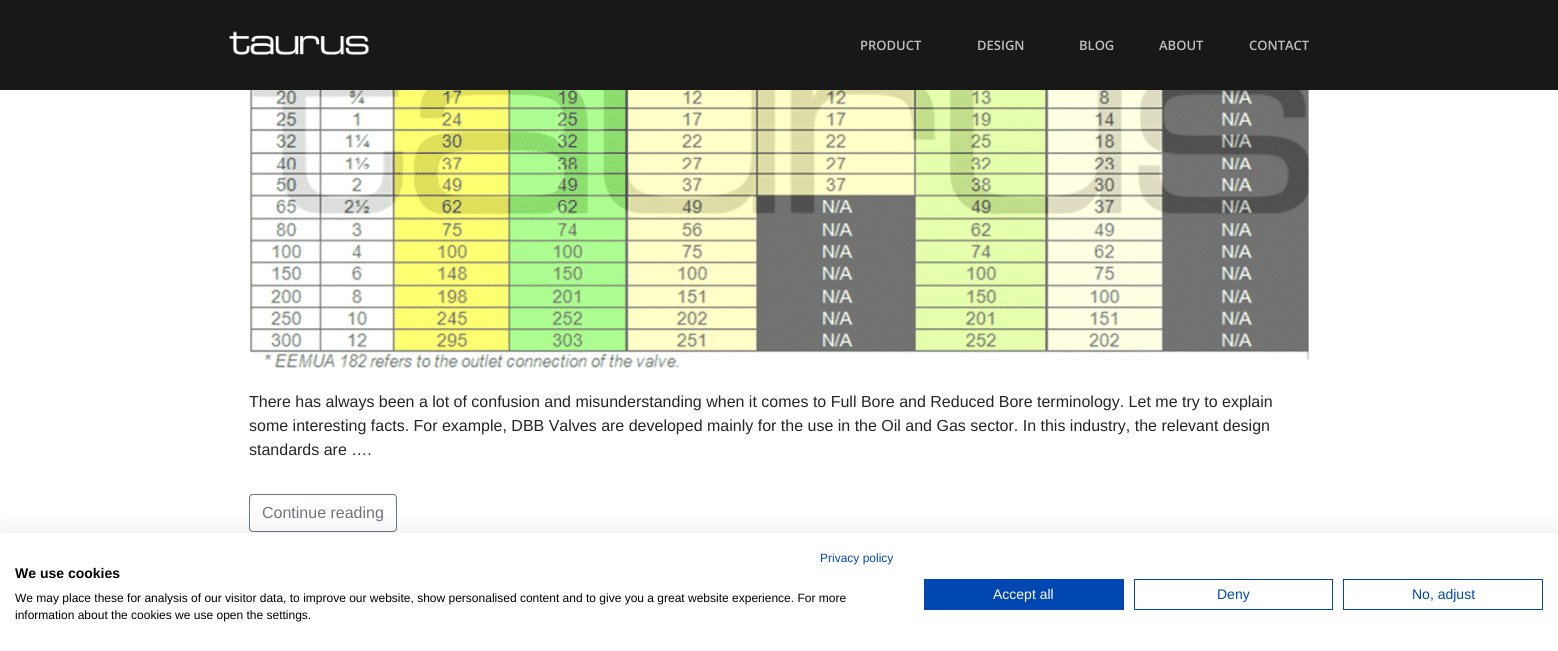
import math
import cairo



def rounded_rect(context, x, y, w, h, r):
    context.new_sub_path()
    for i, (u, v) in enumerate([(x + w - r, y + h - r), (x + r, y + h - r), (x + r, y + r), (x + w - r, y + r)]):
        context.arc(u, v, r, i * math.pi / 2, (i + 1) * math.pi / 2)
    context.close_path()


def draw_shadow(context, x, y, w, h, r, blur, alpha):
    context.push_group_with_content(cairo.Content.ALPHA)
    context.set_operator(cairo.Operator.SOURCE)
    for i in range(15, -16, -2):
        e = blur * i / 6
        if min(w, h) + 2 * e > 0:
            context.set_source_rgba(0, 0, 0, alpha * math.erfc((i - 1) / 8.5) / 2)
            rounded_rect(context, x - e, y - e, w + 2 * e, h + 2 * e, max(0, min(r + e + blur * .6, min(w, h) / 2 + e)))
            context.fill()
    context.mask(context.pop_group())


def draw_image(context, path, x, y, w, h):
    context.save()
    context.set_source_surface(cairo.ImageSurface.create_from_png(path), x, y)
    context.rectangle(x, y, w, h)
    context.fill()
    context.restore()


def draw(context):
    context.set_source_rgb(1, 1, 1)
    context.paint()
    context.set_source_rgb(24 / 255, 24 / 255, 24 / 255)
    context.rectangle(0, 0, 1558, 90)
    context.fill()
    draw_image(context, "images/1.png", 229, 31, 140, 24)
    draw_image(context, "images/2.png", 249, 90, 1060, 284)
    rounded_rect(context, 249.5, 494.5, 147, 37, 3.5)
    context.set_source_rgb(108 / 255, 117 / 255, 125 / 255)
    context.set_line_width(1)
    context.stroke()
    context.set_source_rgb(0, 0, 0)
    draw_shadow(context, 0, 533, 1558, 118, 0, 12, 0.1)
    context.set_source_rgb(1, 1, 1)
    context.rectangle(0, 533, 1558, 118)
    context.fill()
    context.set_source_rgb(0, 71 / 255, 178 / 255)
    context.rectangle(924, 579, 200, 31)
    context.fill()
    context.rectangle(1134.5, 579.5, 198, 30)
    context.stroke()
    context.rectangle(1343.5, 579.5, 199, 30)
    context.stroke()
    context.select_font_face("Open Sans SemiBold")
    context.set_font_size(13)
    context.set_source_rgb(191 / 255, 191 / 255, 191 / 255)
    context.move_to(860, 50)
    context.show_text("PRODUCT")
    context.move_to(977, 50)
    context.show_text("DESIGN")
    context.move_to(1079, 50)
    context.show_text("BLOG")
    context.move_to(1159, 50)
    context.show_text("ABOUT")
    context.move_to(1249, 50)
    context.show_text("CONTACT")
    context.select_font_face("Liberation Sans")
    context.set_font_size(16)
    context.set_source_rgb(33 / 255, 37 / 255, 41 / 255)
    context.move_to(249, 407)
    context.show_text("There has always been a lot of confusion and misunderstanding when it comes to Full Bore and Reduced Bore terminology. Let me try to explain")
    context.move_to(249, 431)
    context.show_text("some interesting facts. For example, DBB Valves are developed mainly for the use in the Oil and Gas sector. In this industry, the relevant design")
    context.move_to(249, 455)
    context.show_text("standards are ….")
    context.set_source_rgb(108 / 255, 117 / 255, 125 / 255)
    context.move_to(262, 518)
    context.show_text("Continue reading")
    context.set_font_size(12)
    context.set_source_rgb(0, 71 / 255, 178 / 255)
    context.move_to(820, 562)
    context.show_text("Privacy policy")
    context.select_font_face("Liberation Sans", cairo.FontSlant.NORMAL, cairo.FontWeight.BOLD)
    context.set_font_size(14)
    context.set_source_rgb(0, 0, 0)
    context.move_to(15, 578)
    context.show_text("We use cookies")
    context.select_font_face("Liberation Sans")
    context.set_font_size(12)
    context.move_to(15, 602)
    context.show_text("We may place these for analysis of our visitor data, to improve our website, show personalised content and to give you a great website experience. For more")
    context.move_to(15, 619)
    context.show_text("information about the cookies we use open the settings.")
    context.set_font_size(14)
    context.set_source_rgb(1, 1, 1)
    context.move_to(993, 599)
    context.show_text("Accept all")
    context.set_source_rgb(0, 71 / 255, 178 / 255)
    context.move_to(1217, 599)
    context.show_text("Deny")
    context.move_to(1412, 599)
    context.show_text("No, adjust")


surface = cairo.ImageSurface(cairo.Format.RGB24, 1558, 651)
context = cairo.Context(surface)
options = cairo.FontOptions()
options.set_hint_metrics(cairo.HintMetrics.OFF)
options.set_hint_style(cairo.HintStyle.NONE)
context.set_font_options(options)
context.set_miter_limit(4)
draw(context)
surface.write_to_png("out.png")
